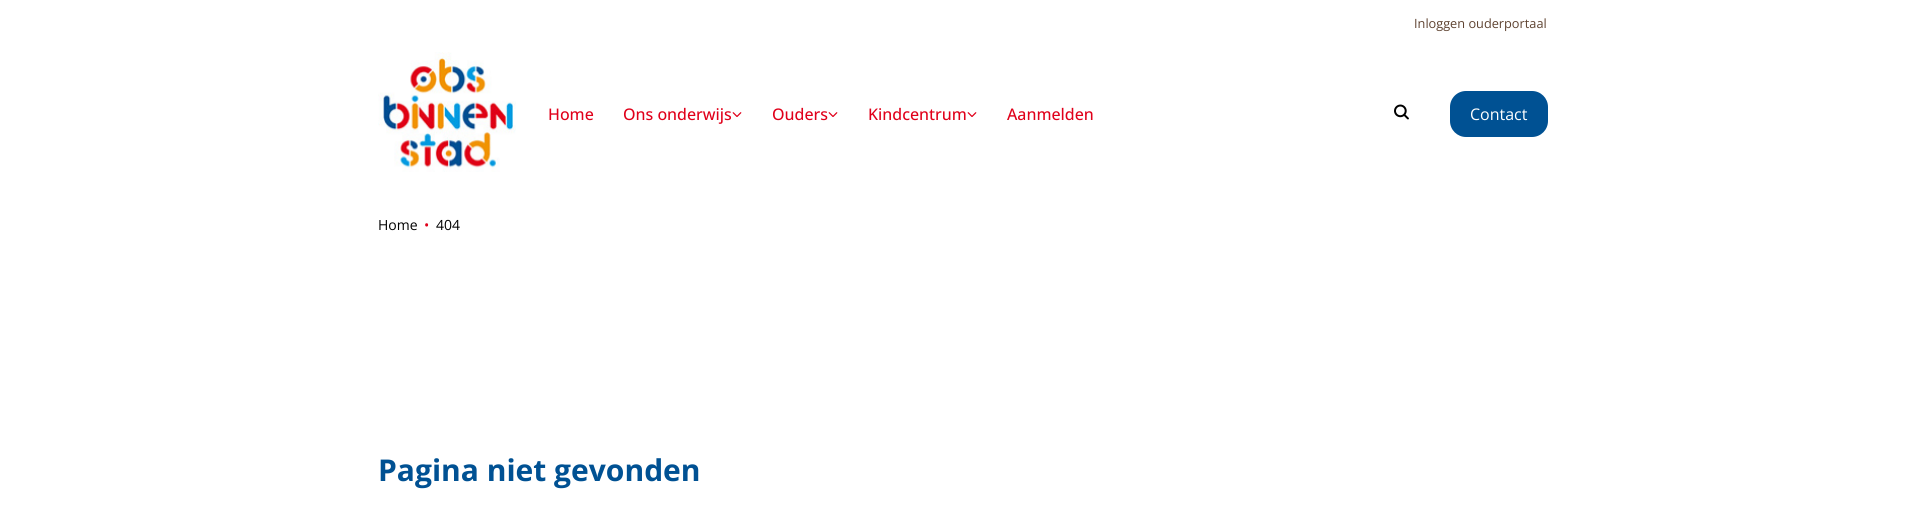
import math
import cairo



def rounded_rect(context, x, y, w, h, r):
    context.new_sub_path()
    for i, (u, v) in enumerate([(x + w - r, y + h - r), (x + r, y + h - r), (x + r, y + r), (x + w - r, y + r)]):
        context.arc(u, v, r, i * math.pi / 2, (i + 1) * math.pi / 2)
    context.close_path()


def draw_image(context, path, x, y, w, h):
    context.save()
    context.set_source_surface(cairo.ImageSurface.create_from_png(path), x, y)
    context.rectangle(x, y, w, h)
    context.fill()
    context.restore()


def draw(context):
    context.set_source_rgb(1, 1, 1)
    context.paint()
    draw_image(context, "images/1.png", 378, 52, 138, 120)
    draw_image(context, "images/2.png", 732, 112, 10, 5)
    draw_image(context, "images/2.png", 828, 112, 10, 5)
    draw_image(context, "images/2.png", 967, 112, 10, 5)
    draw_image(context, "images/3.png", 1394, 104, 15, 16)
    context.set_source_rgb(0, 81 / 255, 147 / 255)
    rounded_rect(context, 1450, 91, 98, 46, 16)
    context.fill()
    context.select_font_face("Open Sans")
    context.set_font_size(12.75)
    context.set_source_rgb(95 / 255, 67 / 255, 49 / 255)
    context.move_to(1414, 28)
    context.show_text("Inloggen ouderportaal")
    context.select_font_face("Open Sans Medium")
    context.set_font_size(16)
    context.set_source_rgb(224 / 255, 0, 26 / 255)
    context.move_to(548, 120)
    context.show_text("Home")
    context.move_to(623, 120)
    context.show_text("Ons onderwijs")
    context.move_to(772, 120)
    context.show_text("Ouders")
    context.move_to(868, 120)
    context.show_text("Kindcentrum")
    context.move_to(1007, 120)
    context.show_text("Aanmelden")
    context.select_font_face("Open Sans")
    context.set_source_rgb(1, 1, 1)
    context.move_to(1470, 120)
    context.show_text("Contact")
    context.set_font_size(14)
    context.set_source_rgb(0, 0, 0)
    context.move_to(378, 230)
    context.show_text("Home")
    context.set_source_rgb(224 / 255, 0, 26 / 255)
    context.move_to(424, 230)
    context.show_text("•")
    context.set_source_rgb(0, 0, 0)
    context.move_to(436, 230)
    context.show_text("404")
    context.select_font_face("Open Sans", cairo.FontSlant.NORMAL, cairo.FontWeight.BOLD)
    context.set_font_size(30)
    context.set_source_rgb(0, 81 / 255, 147 / 255)
    context.move_to(378, 481)
    context.show_text("Pagina niet gevonden")


surface = cairo.ImageSurface(cairo.Format.RGB24, 1925, 515)
context = cairo.Context(surface)
options = cairo.FontOptions()
options.set_hint_metrics(cairo.HintMetrics.OFF)
options.set_hint_style(cairo.HintStyle.NONE)
context.set_font_options(options)
context.set_miter_limit(4)
draw(context)
surface.write_to_png("out.png")
